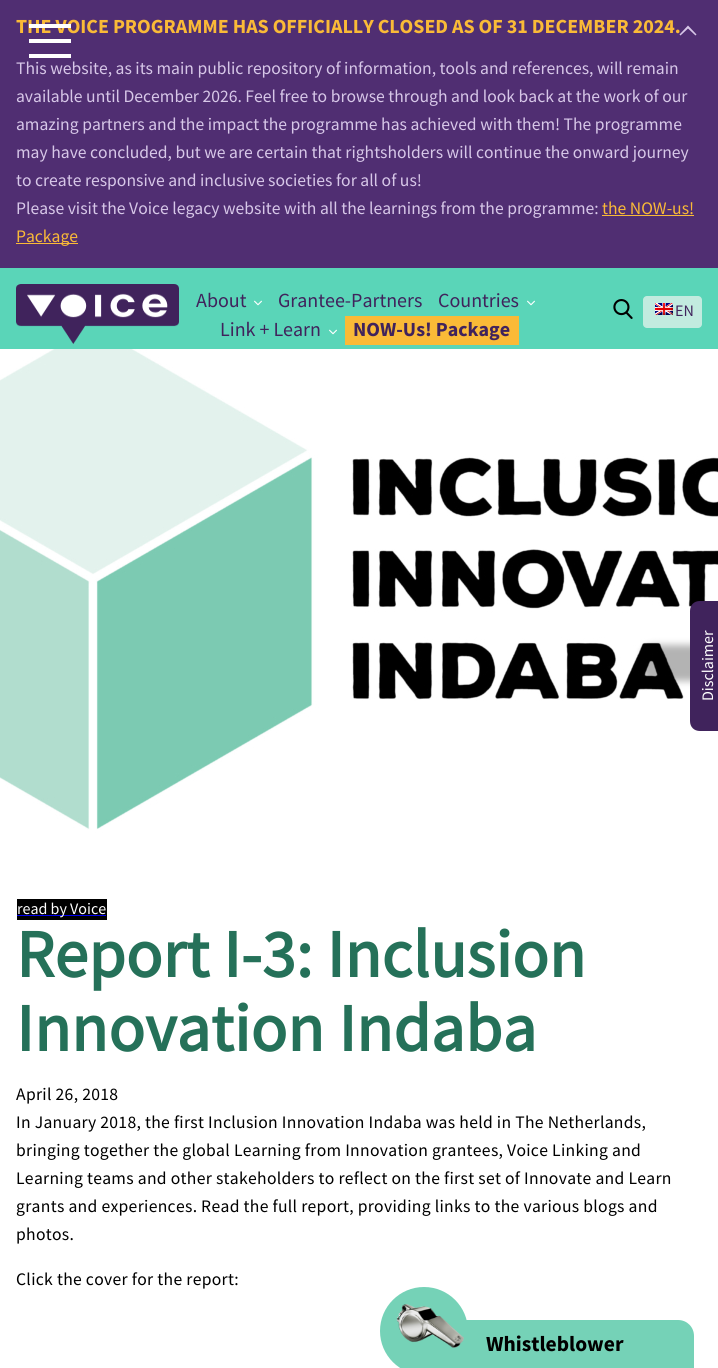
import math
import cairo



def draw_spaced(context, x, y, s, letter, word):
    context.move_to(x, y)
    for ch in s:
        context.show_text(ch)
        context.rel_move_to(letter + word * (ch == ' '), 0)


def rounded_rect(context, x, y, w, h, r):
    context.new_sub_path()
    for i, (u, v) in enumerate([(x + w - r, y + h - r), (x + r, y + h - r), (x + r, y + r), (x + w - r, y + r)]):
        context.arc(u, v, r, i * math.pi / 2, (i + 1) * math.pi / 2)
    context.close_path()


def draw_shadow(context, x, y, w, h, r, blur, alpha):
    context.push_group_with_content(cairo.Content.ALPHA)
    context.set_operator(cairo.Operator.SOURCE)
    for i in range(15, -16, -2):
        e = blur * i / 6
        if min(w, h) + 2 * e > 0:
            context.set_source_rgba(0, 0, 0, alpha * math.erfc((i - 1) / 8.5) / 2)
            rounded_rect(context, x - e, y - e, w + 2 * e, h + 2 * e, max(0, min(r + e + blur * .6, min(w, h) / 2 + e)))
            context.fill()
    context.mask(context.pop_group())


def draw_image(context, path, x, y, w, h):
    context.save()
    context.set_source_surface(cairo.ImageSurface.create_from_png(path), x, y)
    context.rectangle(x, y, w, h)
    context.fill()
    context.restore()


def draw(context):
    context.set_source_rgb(1, 1, 1)
    context.paint()
    context.set_source_rgb(90 / 255, 213 / 255, 184 / 255)
    context.rectangle(0, 268, 718, 81)
    context.fill()
    context.set_source_rgb(80 / 255, 46 / 255, 114 / 255)
    context.rectangle(0, 0, 718, 268)
    context.fill()
    context.set_source_rgb(250 / 255, 186 / 255, 55 / 255)
    context.rectangle(602, 215, 92, 1)
    context.fill()
    context.rectangle(16, 243, 62, 1)
    context.fill()
    draw_image(context, "images/1.png", 16, 284, 163, 60)
    draw_image(context, "images/2.png", 254, 300, 8, 6)
    draw_image(context, "images/2.png", 527, 300, 8, 6)
    draw_image(context, "images/2.png", 329, 329, 8, 6)
    context.rectangle(345, 316, 174, 29)
    context.fill()
    draw_image(context, "images/3.png", 613, 299, 20, 20)
    context.set_source_rgb(194 / 255, 235 / 255, 223 / 255)
    rounded_rect(context, 643, 296, 59, 32, 4)
    context.fill()
    draw_image(context, "images/4.png", 655, 303, 18, 12)
    context.set_source_rgb(1, 1, 1)
    context.rectangle(29, 39, 42, 4)
    context.fill()
    context.rectangle(29, 54, 42, 4)
    context.fill()
    context.set_source_rgb(0, 0, 0)
    context.rectangle(106, 898, 1, 22)
    context.fill()
    draw_image(context, "images/5.png", 0, 349, 718, 550)
    context.rectangle(17, 899, 89, 21)
    context.fill()
    context.set_source_rgb(0, 0, 238 / 255)
    context.rectangle(17, 915, 89, 1)
    context.fill()
    context.set_source_rgb(0, 0, 0)
    draw_shadow(context, 642, 645, 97, 36, 10, 3.5, 0.3)
    context.set_source_rgb(64 / 255, 35 / 255, 92 / 255)
    context.new_path()
    context.move_to(690, 721)
    context.line_to(690, 611)
    context.curve_to(690, 605, 694, 601, 700, 601)
    context.line_to(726, 601)
    context.line_to(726, 731)
    context.line_to(700, 731)
    context.curve_to(694, 731, 690, 727, 690, 721)
    context.close_path()
    context.fill()
    context.set_source_rgb(117 / 255, 210 / 255, 183 / 255)
    context.new_path()
    context.move_to(414, 1320)
    context.line_to(678, 1320)
    context.curve_to(687, 1320, 694, 1327, 694, 1336)
    context.line_to(694, 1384)
    context.line_to(414, 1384)
    context.close_path()
    context.fill()
    context.arc(424, 1331, 44, 0, 2 * math.pi)
    context.fill()
    draw_image(context, "images/6.png", 396, 1304, 68, 44)
    context.select_font_face("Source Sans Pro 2", cairo.FontSlant.NORMAL, cairo.FontWeight.BOLD)
    context.set_font_size(20)
    context.set_source_rgb(250 / 255, 186 / 255, 55 / 255)
    context.move_to(16, 33)
    context.show_text("THE VOICE PROGRAMME HAS OFFICIALLY CLOSED AS OF 31 DECEMBER 2024.")
    context.select_font_face("Source Sans Pro")
    context.set_font_size(17.6)
    context.set_source_rgb(215 / 255, 199 / 255, 232 / 255)
    context.move_to(16, 74)
    context.show_text("This website, as its main public repository of information, tools and references, will remain")
    context.move_to(16, 102)
    context.show_text("available until December 2026. Feel free to browse through and look back at the work of our")
    context.move_to(16, 130)
    context.show_text("amazing partners and the impact the programme has achieved with them! The programme")
    context.move_to(16, 158)
    context.show_text("may have concluded, but we are certain that rightsholders will continue the onward journey")
    context.move_to(16, 186)
    context.show_text("to create responsive and inclusive societies for all of us!")
    context.move_to(16, 214)
    context.show_text("Please visit the Voice legacy website with all the learnings from the programme:")
    context.set_source_rgb(250 / 255, 186 / 255, 55 / 255)
    context.move_to(602, 214)
    context.show_text("the NOW-us!")
    context.move_to(16, 242)
    context.show_text("Package")
    context.set_source_rgb(215 / 255, 199 / 255, 232 / 255)
    context.new_path()
    context.move_to(688, 25.5)
    context.line_to(679.5, 34.5)
    context.line_to(680.5, 35.5)
    context.line_to(688, 28.5)
    context.line_to(695.5, 35.5)
    context.line_to(696.5, 34.5)
    context.close_path()
    context.fill()
    context.set_font_size(20)
    context.set_source_rgb(64 / 255, 35 / 255, 92 / 255)
    context.move_to(196, 307)
    context.show_text("About")
    context.move_to(278, 307)
    context.show_text("Grantee-Partners")
    context.move_to(438, 307)
    context.show_text("Countries")
    context.move_to(220, 336)
    context.show_text("Link + Learn")
    context.select_font_face("Source Sans Pro 2", cairo.FontSlant.NORMAL, cairo.FontWeight.BOLD)
    context.move_to(353, 336)
    context.show_text("NOW-Us! Package")
    context.select_font_face("Source Sans Pro")
    context.set_font_size(16)
    context.move_to(675, 316)
    context.show_text("EN")
    context.set_source_rgb(1, 1, 1)
    context.rectangle(29, 24, 42, 4)
    context.fill()
    context.move_to(17, 914)
    context.show_text("read by Voice")
    context.select_font_face("Source Sans Pro", cairo.FontSlant.NORMAL, cairo.FontWeight.BOLD)
    context.set_font_size(67.25)
    context.set_source_rgb(37 / 255, 113 / 255, 89 / 255)
    draw_spaced(context, 16, 977, "Report I-3: Inclusion", 0.3, 0)
    draw_spaced(context, 16, 1051, "Innovation Indaba", 0.3, 0)
    context.select_font_face("Source Sans Pro")
    context.set_font_size(17.6)
    context.set_source_rgb(0, 0, 0)
    draw_spaced(context, 16, 1100, "April 26, 2018", 0.3, 0)
    draw_spaced(context, 16, 1128, "In January 2018, the first Inclusion Innovation Indaba was held in The Netherlands,", 0.3, 0)
    draw_spaced(context, 16, 1156, "bringing together the global Learning from Innovation grantees, Voice Linking and", 0.3, 0)
    draw_spaced(context, 16, 1184, "Learning teams and other stakeholders to reflect on the first set of Innovate and Learn", 0.3, 0)
    draw_spaced(context, 16, 1212, "grants and experiences. Read the full report, providing links to the various blogs and", 0.3, 0)
    draw_spaced(context, 16, 1240, "photos.", 0.3, 0)
    draw_spaced(context, 16, 1285, "Click the cover for the report:", 0.3, 0)
    context.set_font_size(16)
    context.set_source_rgb(1, 1, 1)
    context.save()
    context.translate(713, 701)
    context.rotate(-90 * math.pi / 180)
    context.move_to(0, 0)
    context.show_text("Disclaimer")
    context.restore()
    context.select_font_face("Source Sans Pro 2", cairo.FontSlant.NORMAL, cairo.FontWeight.BOLD)
    context.set_font_size(21.5)
    context.set_source_rgb(0, 0, 0)
    context.move_to(486, 1351)
    context.show_text("Whistleblower")


surface = cairo.ImageSurface(cairo.Format.RGB24, 718, 1368)
context = cairo.Context(surface)
options = cairo.FontOptions()
options.set_hint_metrics(cairo.HintMetrics.OFF)
options.set_hint_style(cairo.HintStyle.NONE)
context.set_font_options(options)
context.set_miter_limit(4)
draw(context)
surface.write_to_png("out.png")
